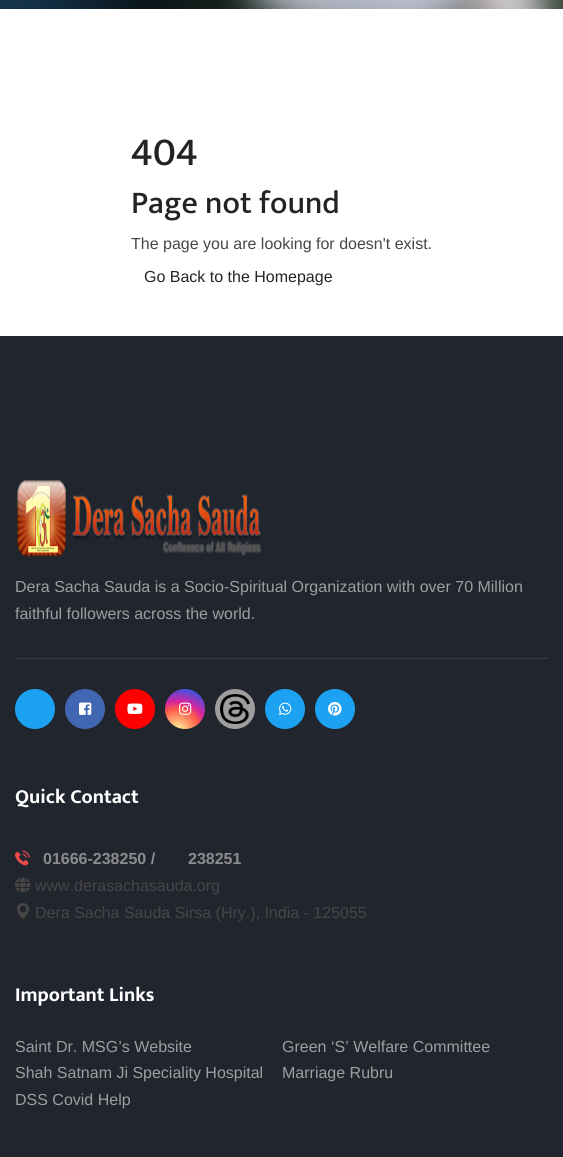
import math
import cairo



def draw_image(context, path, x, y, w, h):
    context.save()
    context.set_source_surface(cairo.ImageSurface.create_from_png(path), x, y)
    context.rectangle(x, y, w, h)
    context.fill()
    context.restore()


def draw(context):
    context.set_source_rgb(1, 1, 1)
    context.paint()
    draw_image(context, "images/1.png", 0, 0, 563, 9)
    context.set_source_rgb(33 / 255, 37 / 255, 46 / 255)
    context.rectangle(0, 336, 563, 821)
    context.fill()
    draw_image(context, "images/2.png", 17, 480, 245, 77)
    context.set_source_rgb(55 / 255, 59 / 255, 67 / 255)
    context.rectangle(15, 658, 533, 1)
    context.fill()
    context.set_source_rgb(29 / 255, 161 / 255, 242 / 255)
    context.arc(35, 709, 20, 0, 2 * math.pi)
    context.fill()
    context.set_source_rgb(66 / 255, 103 / 255, 178 / 255)
    context.arc(85, 709, 20, 0, 2 * math.pi)
    context.fill()
    draw_image(context, "images/3.png", 79, 702, 13, 13)
    context.set_source_rgb(1, 0, 0)
    context.arc(135, 709, 20, 0, 2 * math.pi)
    context.fill()
    draw_image(context, "images/4.png", 127, 703, 16, 11)
    gradient = cairo.RadialGradient(177, 732, 0, 177, 732, 51)
    gradient.add_color_stop_rgba(0, 253 / 255, 244 / 255, 151 / 255, 1)
    gradient.add_color_stop_rgba(0.05, 253 / 255, 244 / 255, 151 / 255, 1)
    gradient.add_color_stop_rgba(0.45, 253 / 255, 89 / 255, 73 / 255, 1)
    gradient.add_color_stop_rgba(0.6, 214 / 255, 36 / 255, 159 / 255, 1)
    gradient.add_color_stop_rgba(0.9, 40 / 255, 90 / 255, 235 / 255, 1)
    context.set_source(gradient)
    context.arc(185, 709, 20, 0, 2 * math.pi)
    context.fill()
    draw_image(context, "images/5.png", 179, 702, 13, 13)
    context.set_source_rgb(158 / 255, 158 / 255, 158 / 255)
    context.arc(235, 709, 20, 0, 2 * math.pi)
    context.fill()
    draw_image(context, "images/6.png", 220, 694, 30, 30)
    context.set_source_rgb(29 / 255, 161 / 255, 242 / 255)
    context.arc(285, 709, 20, 0, 2 * math.pi)
    context.fill()
    draw_image(context, "images/7.png", 279, 702, 13, 13)
    context.arc(335, 709, 20, 0, 2 * math.pi)
    context.fill()
    draw_image(context, "images/8.png", 328, 702, 14, 14)
    draw_image(context, "images/9.png", 15, 850, 15, 16)
    draw_image(context, "images/10.png", 15, 877, 16, 16)
    draw_image(context, "images/11.png", 17, 903, 12, 16)
    context.select_font_face("Mukta Medium")
    context.set_font_size(40)
    context.set_source_rgb(36 / 255, 35 / 255, 35 / 255)
    context.move_to(131, 165)
    context.show_text("404")
    context.set_font_size(32)
    context.move_to(131, 213)
    context.show_text("Page not found")
    context.select_font_face("Liberation Sans")
    context.set_font_size(16)
    context.set_source_rgb(72 / 255, 69 / 255, 69 / 255)
    context.move_to(131, 249)
    context.show_text("The page you are looking for doesn't exist.")
    context.set_source_rgb(33 / 255, 37 / 255, 41 / 255)
    context.move_to(144, 282)
    context.show_text("Go Back to the Homepage")
    context.set_source_rgb(158 / 255, 158 / 255, 158 / 255)
    context.move_to(15, 592)
    context.show_text("Dera Sacha Sauda is a Socio-Spiritual Organization with over 70 Million")
    context.move_to(15, 619)
    context.show_text("faithful followers across the world.")
    context.select_font_face("Mukta", cairo.FontSlant.NORMAL, cairo.FontWeight.BOLD)
    context.set_font_size(20)
    context.set_source_rgb(1, 1, 1)
    context.move_to(15, 803)
    context.show_text("Quick Contact")
    context.select_font_face("Liberation Sans", cairo.FontSlant.NORMAL, cairo.FontWeight.BOLD)
    context.set_font_size(16)
    context.set_source_rgb(140 / 255, 140 / 255, 140 / 255)
    context.move_to(43, 864)
    context.show_text("01666-238250 /")
    context.move_to(188, 864)
    context.show_text("238251")
    context.select_font_face("Liberation Sans")
    context.set_source_rgb(72 / 255, 69 / 255, 69 / 255)
    context.move_to(35, 891)
    context.show_text("www.derasachasauda.org")
    context.move_to(35, 918)
    context.show_text("Dera Sacha Sauda Sirsa (Hry.), India - 125055")
    context.select_font_face("Mukta", cairo.FontSlant.NORMAL, cairo.FontWeight.BOLD)
    context.set_font_size(20)
    context.set_source_rgb(1, 1, 1)
    context.move_to(15, 1001)
    context.show_text("Important Links")
    context.select_font_face("Liberation Sans")
    context.set_font_size(16)
    context.set_source_rgb(158 / 255, 158 / 255, 158 / 255)
    context.move_to(15, 1052)
    context.show_text("Saint Dr. MSG’s Website")
    context.move_to(282, 1052)
    context.show_text("Green ‘S’ Welfare Committee")
    context.move_to(15, 1078)
    context.show_text("Shah Satnam Ji Speciality Hospital")
    context.move_to(282, 1078)
    context.show_text("Marriage Rubru")
    context.move_to(15, 1105)
    context.show_text("DSS Covid Help")


surface = cairo.ImageSurface(cairo.Format.RGB24, 563, 1157)
context = cairo.Context(surface)
options = cairo.FontOptions()
options.set_hint_metrics(cairo.HintMetrics.OFF)
options.set_hint_style(cairo.HintStyle.NONE)
context.set_font_options(options)
context.set_miter_limit(4)
draw(context)
surface.write_to_png("out.png")
